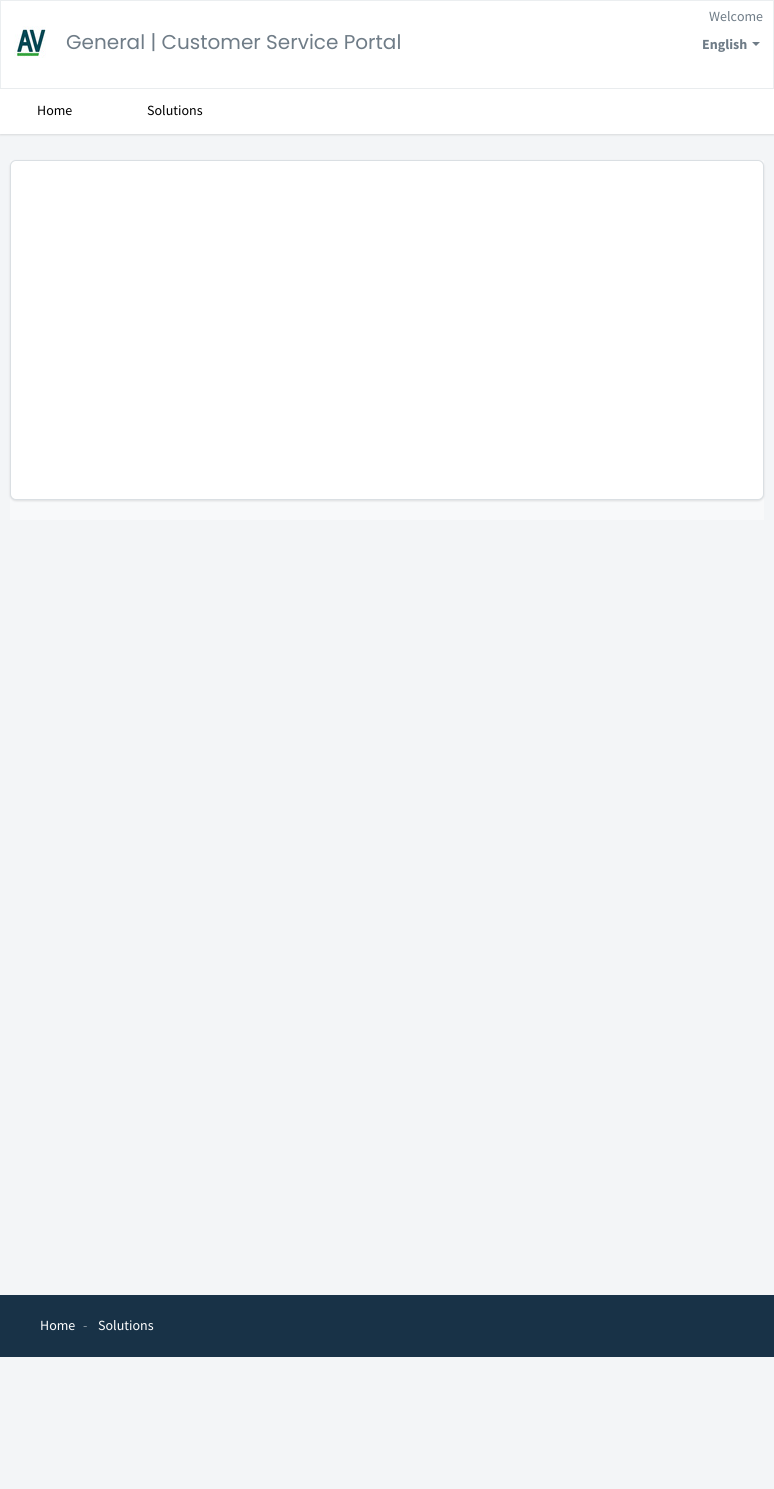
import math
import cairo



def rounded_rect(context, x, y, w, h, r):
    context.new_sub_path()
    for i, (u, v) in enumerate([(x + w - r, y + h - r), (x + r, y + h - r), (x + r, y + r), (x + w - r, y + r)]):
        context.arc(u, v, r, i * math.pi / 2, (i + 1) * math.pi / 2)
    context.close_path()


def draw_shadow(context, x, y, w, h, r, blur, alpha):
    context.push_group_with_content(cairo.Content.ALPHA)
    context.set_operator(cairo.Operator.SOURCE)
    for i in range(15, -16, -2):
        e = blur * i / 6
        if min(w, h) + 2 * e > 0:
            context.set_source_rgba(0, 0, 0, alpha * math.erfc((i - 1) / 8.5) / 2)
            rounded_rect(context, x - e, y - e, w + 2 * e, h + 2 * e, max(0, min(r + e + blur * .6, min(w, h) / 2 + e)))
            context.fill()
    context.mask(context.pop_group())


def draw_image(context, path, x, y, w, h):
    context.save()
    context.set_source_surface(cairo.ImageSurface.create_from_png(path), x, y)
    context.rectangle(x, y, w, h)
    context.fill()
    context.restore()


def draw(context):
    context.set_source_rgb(243 / 255, 245 / 255, 247 / 255)
    context.paint()
    context.set_source_rgb(1, 1, 1)
    context.rectangle(0.5, 0.5, 773, 88)
    context.fill_preserve()
    context.set_source_rgb(235 / 255, 238 / 255, 240 / 255)
    context.set_line_width(1)
    context.stroke()
    draw_image(context, "images/1.png", 14, 26, 32, 32)
    context.set_source_rgb(111 / 255, 124 / 255, 135 / 255)
    context.new_path()
    context.move_to(752, 42)
    context.line_to(760, 42)
    context.line_to(756, 46)
    context.close_path()
    context.fill()
    context.set_source_rgb(63 / 255, 63 / 255, 68 / 255)
    draw_shadow(context, 0, 90, 774, 45, 0, 1, 0.15)
    context.set_source_rgb(1, 1, 1)
    context.rectangle(0, 89, 774, 45)
    context.fill()
    context.set_source_rgb(248 / 255, 249 / 255, 250 / 255)
    context.rectangle(10, 160, 754, 360)
    context.fill()
    context.set_source_rgb(63 / 255, 63 / 255, 68 / 255)
    draw_shadow(context, 10, 161, 754, 340, 6, 1, 0.15)
    context.set_source_rgb(1, 1, 1)
    rounded_rect(context, 10.5, 160.5, 753, 339, 5.5)
    context.fill_preserve()
    context.set_source_rgb(218 / 255, 223 / 255, 227 / 255)
    context.stroke()
    context.set_source_rgb(24 / 255, 50 / 255, 71 / 255)
    context.rectangle(0, 1295, 774, 62)
    context.fill()
    context.select_font_face("Poppins")
    context.set_font_size(20)
    context.set_source_rgb(111 / 255, 124 / 255, 135 / 255)
    context.move_to(66, 49)
    context.show_text("General | Customer Service Portal")
    context.select_font_face("Source Sans Pro")
    context.set_font_size(14)
    context.move_to(709, 21)
    context.show_text("Welcome")
    context.select_font_face("Source Sans Pro", cairo.FontSlant.NORMAL, cairo.FontWeight.BOLD)
    context.move_to(702, 49)
    context.show_text("English")
    context.select_font_face("Source Sans Pro")
    context.set_source_rgb(0, 0, 0)
    context.move_to(37, 115)
    context.show_text("Home")
    context.move_to(147, 115)
    context.show_text("Solutions")
    context.set_source_rgb(1, 1, 1)
    context.move_to(40, 1330)
    context.show_text("Home")
    context.set_source_rgb(140 / 255, 153 / 255, 163 / 255)
    context.move_to(83, 1330)
    context.show_text("-")
    context.set_source_rgb(1, 1, 1)
    context.move_to(98, 1330)
    context.show_text("Solutions")


surface = cairo.ImageSurface(cairo.Format.RGB24, 774, 1489)
context = cairo.Context(surface)
options = cairo.FontOptions()
options.set_hint_metrics(cairo.HintMetrics.OFF)
options.set_hint_style(cairo.HintStyle.NONE)
context.set_font_options(options)
context.set_miter_limit(4)
draw(context)
surface.write_to_png("out.png")
